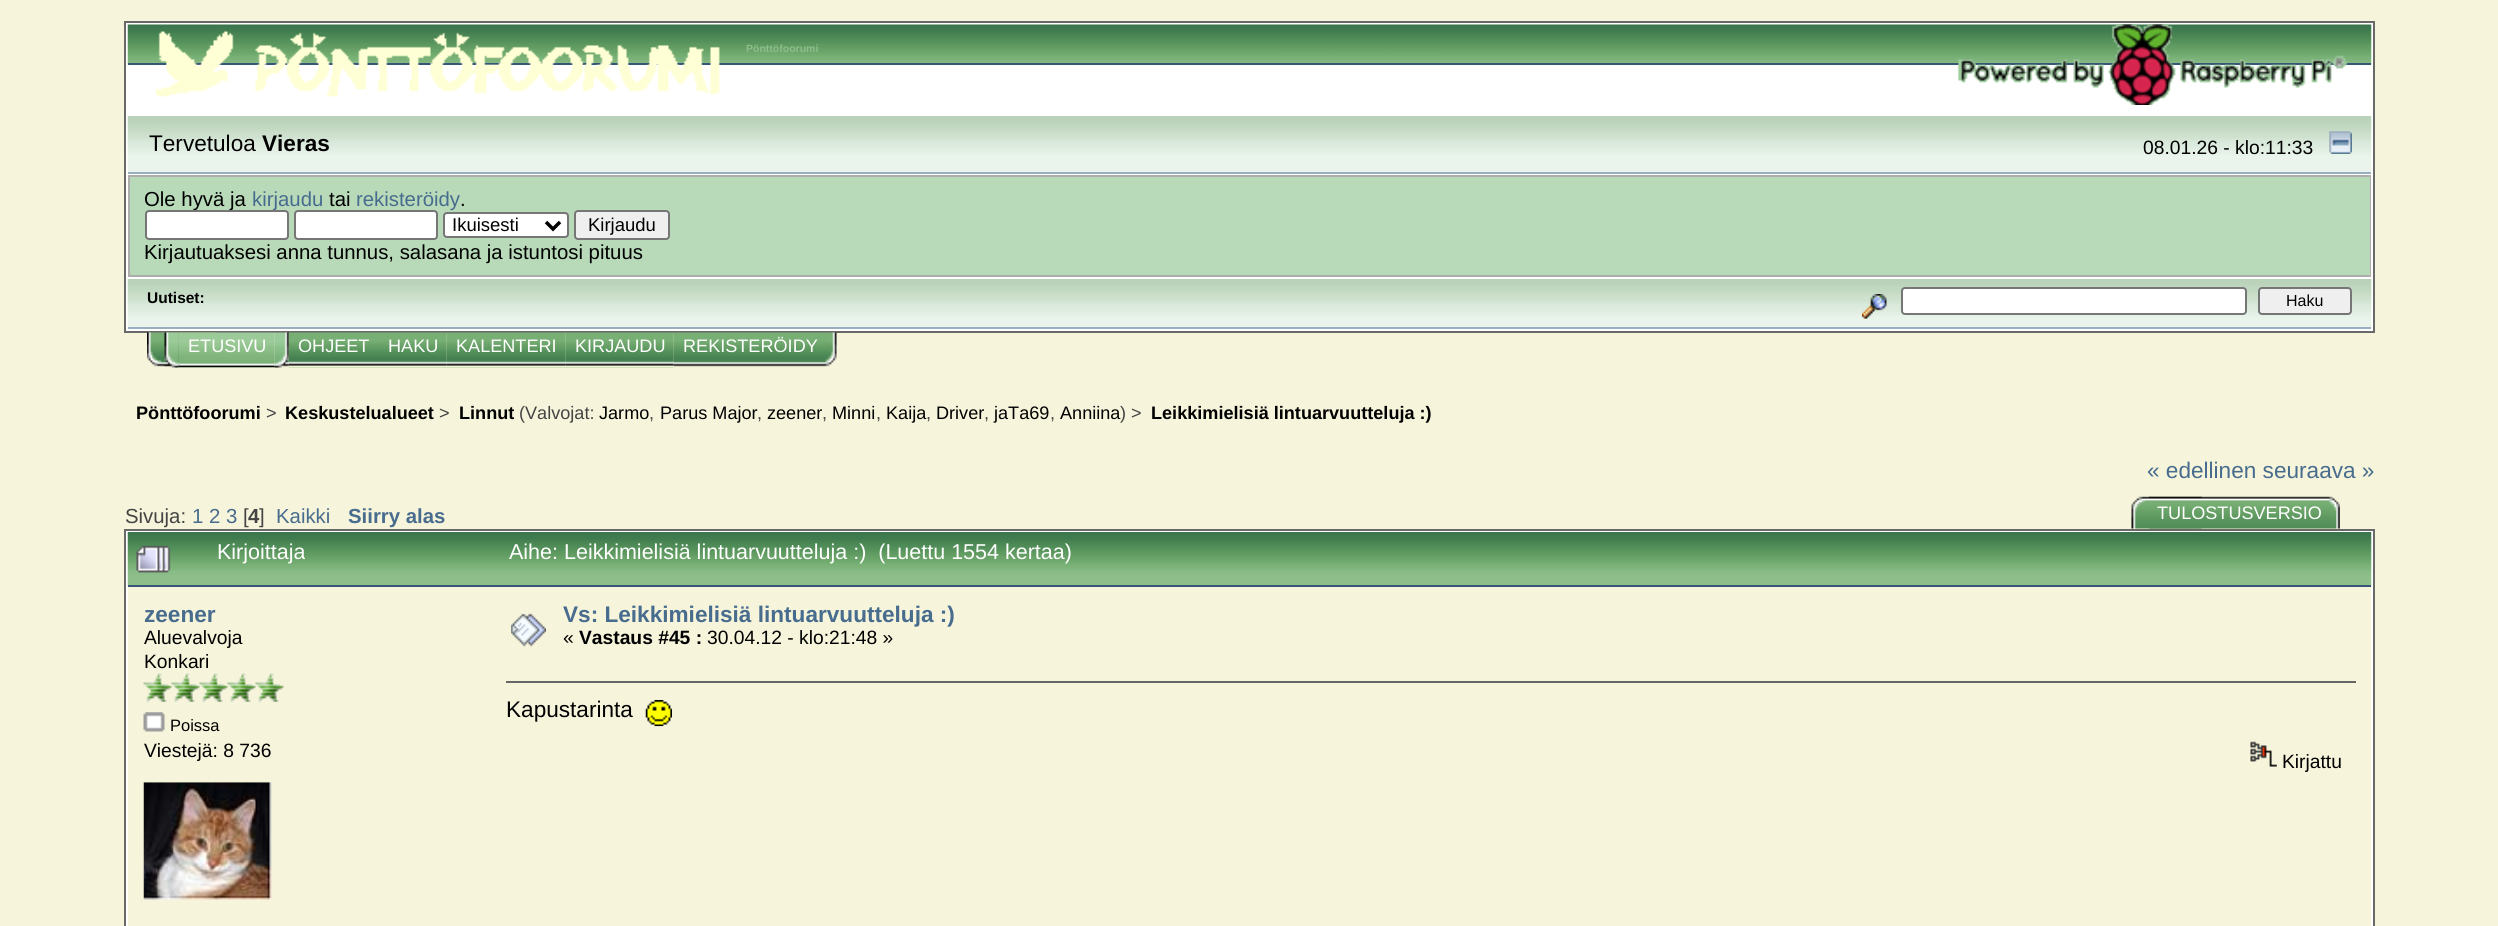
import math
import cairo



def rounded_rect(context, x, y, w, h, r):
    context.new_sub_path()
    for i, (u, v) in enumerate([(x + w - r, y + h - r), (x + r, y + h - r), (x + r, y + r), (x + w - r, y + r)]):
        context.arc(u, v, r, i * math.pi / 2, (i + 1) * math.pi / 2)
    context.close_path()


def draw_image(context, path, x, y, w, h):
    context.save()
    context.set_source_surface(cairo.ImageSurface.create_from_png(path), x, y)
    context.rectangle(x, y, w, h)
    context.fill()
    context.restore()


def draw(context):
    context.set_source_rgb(246 / 255, 244 / 255, 219 / 255)
    context.paint()
    context.set_source_rgb(1, 1, 1)
    context.rectangle(125, 22, 2249, 310)
    context.fill_preserve()
    context.set_source_rgb(105 / 255, 105 / 255, 105 / 255)
    context.stroke()
    draw_image(context, "images/1.png", 127, 24, 2245, 41)
    context.set_source_rgb(55 / 255, 85 / 255, 118 / 255)
    context.rectangle(128, 63, 2243, 2)
    context.fill()
    draw_image(context, "images/2.png", 155, 31, 565, 66)
    draw_image(context, "images/3.png", 1957, 24, 391, 81)
    draw_image(context, "images/4.png", 127, 115, 2245, 59)
    context.set_source_rgb(1, 1, 1)
    context.rectangle(128, 115, 2243, 1)
    context.fill()
    context.set_source_rgb(155 / 255, 174 / 255, 191 / 255)
    context.rectangle(128, 172, 2243, 2)
    context.fill()
    draw_image(context, "images/5.png", 2329, 131, 23, 23)
    context.set_source_rgb(173 / 255, 173 / 255, 173 / 255)
    context.rectangle(128, 175, 2243, 102)
    context.fill()
    context.set_source_rgb(184 / 255, 218 / 255, 185 / 255)
    context.rectangle(130, 177, 2240, 98)
    context.fill()
    context.set_source_rgb(1, 1, 1)
    rounded_rect(context, 444, 213, 124, 24, 3)
    context.fill_preserve()
    context.set_source_rgb(118 / 255, 118 / 255, 118 / 255)
    context.stroke()
    context.new_path()
    context.move_to(546, 222)
    context.line_to(553, 229)
    context.line_to(560, 222)
    context.set_source_rgb(0, 0, 0)
    context.set_line_width(3.5)
    context.stroke()
    context.set_source_rgb(239 / 255, 239 / 255, 239 / 255)
    rounded_rect(context, 575, 211, 94, 28, 3)
    context.fill_preserve()
    context.set_source_rgb(118 / 255, 118 / 255, 118 / 255)
    context.set_line_width(2)
    context.stroke()
    draw_image(context, "images/6.png", 127, 278, 2245, 51)
    context.set_source_rgb(1, 1, 1)
    context.rectangle(128, 278, 2243, 1)
    context.fill()
    context.set_source_rgb(155 / 255, 174 / 255, 191 / 255)
    context.rectangle(128, 327, 2243, 2)
    context.fill()
    draw_image(context, "images/7.png", 1862, 294, 25, 25)
    context.set_source_rgb(1, 1, 1)
    rounded_rect(context, 1902, 288, 344, 26, 3)
    context.fill_preserve()
    context.set_source_rgb(118 / 255, 118 / 255, 118 / 255)
    context.stroke()
    context.set_source_rgb(239 / 255, 239 / 255, 239 / 255)
    rounded_rect(context, 2259, 288, 92, 26, 3)
    context.fill_preserve()
    context.set_source_rgb(118 / 255, 118 / 255, 118 / 255)
    context.stroke()
    draw_image(context, "images/8.png", 147, 332, 70, 35)
    draw_image(context, "images/9.png", 274, 332, 15, 36)
    draw_image(context, "images/10.png", 164, 332, 15, 36)
    draw_image(context, "images/11.png", 178, 332, 97, 36)
    draw_image(context, "images/12.png", 288, 332, 90, 36)
    draw_image(context, "images/13.png", 378, 332, 69, 36)
    draw_image(context, "images/14.png", 446, 332, 120, 36)
    draw_image(context, "images/15.png", 565, 332, 109, 36)
    draw_image(context, "images/16.png", 673, 332, 164, 35)
    draw_image(context, "images/17.png", 2131, 496, 71, 33)
    draw_image(context, "images/18.png", 2149, 496, 191, 33)
    context.set_source_rgb(1, 1, 1)
    context.rectangle(125, 530, 2249, 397)
    context.fill_preserve()
    context.set_source_rgb(105 / 255, 105 / 255, 105 / 255)
    context.stroke()
    draw_image(context, "images/19.png", 127, 532, 2245, 55)
    context.set_source_rgb(55 / 255, 85 / 255, 118 / 255)
    context.rectangle(128, 585, 2243, 2)
    context.fill()
    draw_image(context, "images/20.png", 136, 545, 35, 28)
    context.set_source_rgb(246 / 255, 244 / 255, 219 / 255)
    context.rectangle(128, 587, 2243, 339)
    context.fill()
    draw_image(context, "images/21.png", 143, 673, 29, 29)
    draw_image(context, "images/22.png", 171, 673, 29, 29)
    draw_image(context, "images/22.png", 199, 673, 29, 29)
    draw_image(context, "images/23.png", 227, 673, 29, 29)
    draw_image(context, "images/23.png", 255, 673, 29, 29)
    draw_image(context, "images/24.png", 143, 712, 22, 20)
    draw_image(context, "images/25.png", 143, 782, 129, 118)
    draw_image(context, "images/26.png", 511, 613, 35, 34)
    context.set_source_rgb(102 / 255, 102 / 255, 102 / 255)
    context.rectangle(506, 681, 1850, 2)
    context.fill()
    draw_image(context, "images/27.png", 645, 700, 27, 27)
    draw_image(context, "images/28.png", 2250, 741, 27, 26)
    context.select_font_face("Liberation Sans", cairo.FontSlant.NORMAL, cairo.FontWeight.BOLD)
    context.set_font_size(10.5)
    context.set_source_rgb(142 / 255, 190 / 255, 138 / 255)
    context.move_to(746, 52)
    context.show_text("Pönttöfoorumi")
    context.select_font_face("Liberation Sans")
    context.set_font_size(22.6)
    context.set_source_rgb(0, 0, 0)
    context.move_to(149, 151)
    context.show_text("Tervetuloa")
    context.select_font_face("Liberation Sans", cairo.FontSlant.NORMAL, cairo.FontWeight.BOLD)
    context.move_to(262, 151)
    context.show_text("Vieras")
    context.select_font_face("Liberation Sans")
    context.set_font_size(19.25)
    context.move_to(2143, 154)
    context.show_text("08.01.26 - klo:11:33")
    context.set_font_size(20.35)
    context.move_to(144, 206)
    context.show_text("Ole hyvä ja")
    context.set_source_rgb(71 / 255, 108 / 255, 142 / 255)
    context.move_to(252, 206)
    context.show_text("kirjaudu")
    context.set_source_rgb(0, 0, 0)
    context.move_to(329, 206)
    context.show_text("tai")
    context.set_source_rgb(71 / 255, 108 / 255, 142 / 255)
    context.move_to(356, 206)
    context.show_text("rekisteröidy")
    context.set_source_rgb(0, 0, 0)
    context.move_to(460, 206)
    context.show_text(".")
    context.set_source_rgb(1, 1, 1)
    rounded_rect(context, 146, 211, 142, 28, 3)
    context.fill_preserve()
    context.set_source_rgb(118 / 255, 118 / 255, 118 / 255)
    context.stroke()
    context.set_source_rgb(1, 1, 1)
    rounded_rect(context, 295, 211, 142, 28, 3)
    context.fill_preserve()
    context.set_source_rgb(118 / 255, 118 / 255, 118 / 255)
    context.stroke()
    context.set_font_size(18.5)
    context.set_source_rgb(0, 0, 0)
    context.move_to(452, 231)
    context.show_text("Ikuisesti")
    context.move_to(588, 231)
    context.show_text("Kirjaudu")
    context.set_font_size(20.35)
    context.move_to(144, 259)
    context.show_text("Kirjautuaksesi anna tunnus, salasana ja istuntosi pituus")
    context.select_font_face("Liberation Sans", cairo.FontSlant.NORMAL, cairo.FontWeight.BOLD)
    context.set_font_size(15.5)
    context.move_to(147, 303)
    context.show_text("Uutiset:")
    context.select_font_face("Liberation Sans")
    context.set_font_size(16)
    context.move_to(2286, 306)
    context.show_text("Haku")
    context.set_font_size(18.1)
    context.set_source_rgb(1, 1, 1)
    context.move_to(188, 352)
    context.show_text("ETUSIVU")
    context.move_to(298, 352)
    context.show_text("OHJEET")
    context.move_to(388, 352)
    context.show_text("HAKU")
    context.move_to(456, 352)
    context.show_text("KALENTERI")
    context.move_to(575, 352)
    context.show_text("KIRJAUDU")
    context.move_to(683, 352)
    context.show_text("REKISTERÖIDY")
    context.select_font_face("Liberation Sans", cairo.FontSlant.NORMAL, cairo.FontWeight.BOLD)
    context.set_source_rgb(0, 0, 0)
    context.move_to(136, 419)
    context.show_text("Pönttöfoorumi")
    context.select_font_face("Liberation Sans")
    context.set_source_rgb(68 / 255, 68 / 255, 68 / 255)
    context.move_to(266, 419)
    context.show_text(">")
    context.select_font_face("Liberation Sans", cairo.FontSlant.NORMAL, cairo.FontWeight.BOLD)
    context.set_source_rgb(0, 0, 0)
    context.move_to(285, 419)
    context.show_text("Keskustelualueet")
    context.select_font_face("Liberation Sans")
    context.set_source_rgb(68 / 255, 68 / 255, 68 / 255)
    context.move_to(439, 419)
    context.show_text(">")
    context.select_font_face("Liberation Sans", cairo.FontSlant.NORMAL, cairo.FontWeight.BOLD)
    context.set_source_rgb(0, 0, 0)
    context.move_to(459, 419)
    context.show_text("Linnut")
    context.select_font_face("Liberation Sans")
    context.set_source_rgb(68 / 255, 68 / 255, 68 / 255)
    context.move_to(519, 419)
    context.show_text("(Valvojat:")
    context.set_source_rgb(0, 0, 0)
    context.move_to(599, 419)
    context.show_text("Jarmo")
    context.set_source_rgb(68 / 255, 68 / 255, 68 / 255)
    context.move_to(649, 419)
    context.show_text(",")
    context.set_source_rgb(0, 0, 0)
    context.move_to(660, 419)
    context.show_text("Parus Major")
    context.set_source_rgb(68 / 255, 68 / 255, 68 / 255)
    context.move_to(757, 419)
    context.show_text(",")
    context.set_source_rgb(0, 0, 0)
    context.move_to(767, 419)
    context.show_text("zeener")
    context.set_source_rgb(68 / 255, 68 / 255, 68 / 255)
    context.move_to(822, 419)
    context.show_text(",")
    context.set_source_rgb(0, 0, 0)
    context.move_to(832, 419)
    context.show_text("Minni")
    context.set_source_rgb(68 / 255, 68 / 255, 68 / 255)
    context.move_to(876, 419)
    context.show_text(",")
    context.set_source_rgb(0, 0, 0)
    context.move_to(886, 419)
    context.show_text("Kaija")
    context.set_source_rgb(68 / 255, 68 / 255, 68 / 255)
    context.move_to(926, 419)
    context.show_text(",")
    context.set_source_rgb(0, 0, 0)
    context.move_to(936, 419)
    context.show_text("Driver")
    context.set_source_rgb(68 / 255, 68 / 255, 68 / 255)
    context.move_to(984, 419)
    context.show_text(",")
    context.set_source_rgb(0, 0, 0)
    context.move_to(994, 419)
    context.show_text("jaTa69")
    context.set_source_rgb(68 / 255, 68 / 255, 68 / 255)
    context.move_to(1050, 419)
    context.show_text(",")
    context.set_source_rgb(0, 0, 0)
    context.move_to(1060, 419)
    context.show_text("Anniina")
    context.set_source_rgb(68 / 255, 68 / 255, 68 / 255)
    context.move_to(1120, 419)
    context.show_text(") >")
    context.select_font_face("Liberation Sans", cairo.FontSlant.NORMAL, cairo.FontWeight.BOLD)
    context.set_source_rgb(0, 0, 0)
    context.move_to(1151, 419)
    context.show_text("Leikkimielisiä lintuarvuutteluja :)")
    context.select_font_face("Liberation Sans")
    context.set_font_size(22.6)
    context.set_source_rgb(71 / 255, 108 / 255, 142 / 255)
    context.move_to(2147, 478)
    context.show_text("« edellinen seuraava »")
    context.set_font_size(20.35)
    context.set_source_rgb(68 / 255, 68 / 255, 68 / 255)
    context.move_to(125, 523)
    context.show_text("Sivuja:")
    context.set_source_rgb(71 / 255, 108 / 255, 142 / 255)
    context.move_to(192, 523)
    context.show_text("1 2 3")
    context.set_source_rgb(68 / 255, 68 / 255, 68 / 255)
    context.move_to(243, 523)
    context.show_text("[")
    context.select_font_face("Liberation Sans", cairo.FontSlant.NORMAL, cairo.FontWeight.BOLD)
    context.move_to(248, 523)
    context.show_text("4")
    context.select_font_face("Liberation Sans")
    context.move_to(259, 523)
    context.show_text("]")
    context.set_source_rgb(71 / 255, 108 / 255, 142 / 255)
    context.move_to(276, 523)
    context.show_text("Kaikki")
    context.select_font_face("Liberation Sans", cairo.FontSlant.NORMAL, cairo.FontWeight.BOLD)
    context.move_to(348, 523)
    context.show_text("Siirry alas")
    context.select_font_face("Liberation Sans")
    context.set_font_size(18.1)
    context.set_source_rgb(1, 1, 1)
    context.move_to(2157, 519)
    context.show_text("TULOSTUSVERSIO")
    context.set_font_size(21.5)
    context.move_to(217, 559)
    context.show_text("Kirjoittaja")
    context.move_to(509, 559)
    context.show_text("Aihe: Leikkimielisiä lintuarvuutteluja :)  (Luettu 1554 kertaa)")
    context.select_font_face("Liberation Sans", cairo.FontSlant.NORMAL, cairo.FontWeight.BOLD)
    context.set_font_size(22.6)
    context.set_source_rgb(71 / 255, 108 / 255, 142 / 255)
    context.move_to(144, 622)
    context.show_text("zeener")
    context.select_font_face("Liberation Sans")
    context.set_font_size(19.25)
    context.set_source_rgb(0, 0, 0)
    context.move_to(144, 644)
    context.show_text("Aluevalvoja")
    context.move_to(144, 668)
    context.show_text("Konkari")
    context.set_font_size(16.5)
    context.move_to(170, 731)
    context.show_text("Poissa")
    context.set_font_size(19.25)
    context.move_to(144, 757)
    context.show_text("Viestejä: 8 736")
    context.select_font_face("Liberation Sans", cairo.FontSlant.NORMAL, cairo.FontWeight.BOLD)
    context.set_font_size(22.6)
    context.set_source_rgb(71 / 255, 108 / 255, 142 / 255)
    context.move_to(563, 622)
    context.show_text("Vs: Leikkimielisiä lintuarvuutteluja :)")
    context.select_font_face("Liberation Sans")
    context.set_font_size(19.25)
    context.set_source_rgb(0, 0, 0)
    context.move_to(563, 644)
    context.show_text("«")
    context.select_font_face("Liberation Sans", cairo.FontSlant.NORMAL, cairo.FontWeight.BOLD)
    context.move_to(579, 644)
    context.show_text("Vastaus #45 :")
    context.select_font_face("Liberation Sans")
    context.move_to(707, 644)
    context.show_text("30.04.12 - klo:21:48 »")
    context.set_font_size(22.6)
    context.move_to(506, 717)
    context.show_text("Kapustarinta")
    context.set_font_size(19.25)
    context.move_to(2282, 768)
    context.show_text("Kirjattu")


surface = cairo.ImageSurface(cairo.Format.RGB24, 2498, 926)
context = cairo.Context(surface)
options = cairo.FontOptions()
options.set_hint_metrics(cairo.HintMetrics.OFF)
options.set_hint_style(cairo.HintStyle.NONE)
context.set_font_options(options)
context.set_miter_limit(4)
draw(context)
surface.write_to_png("out.png")
